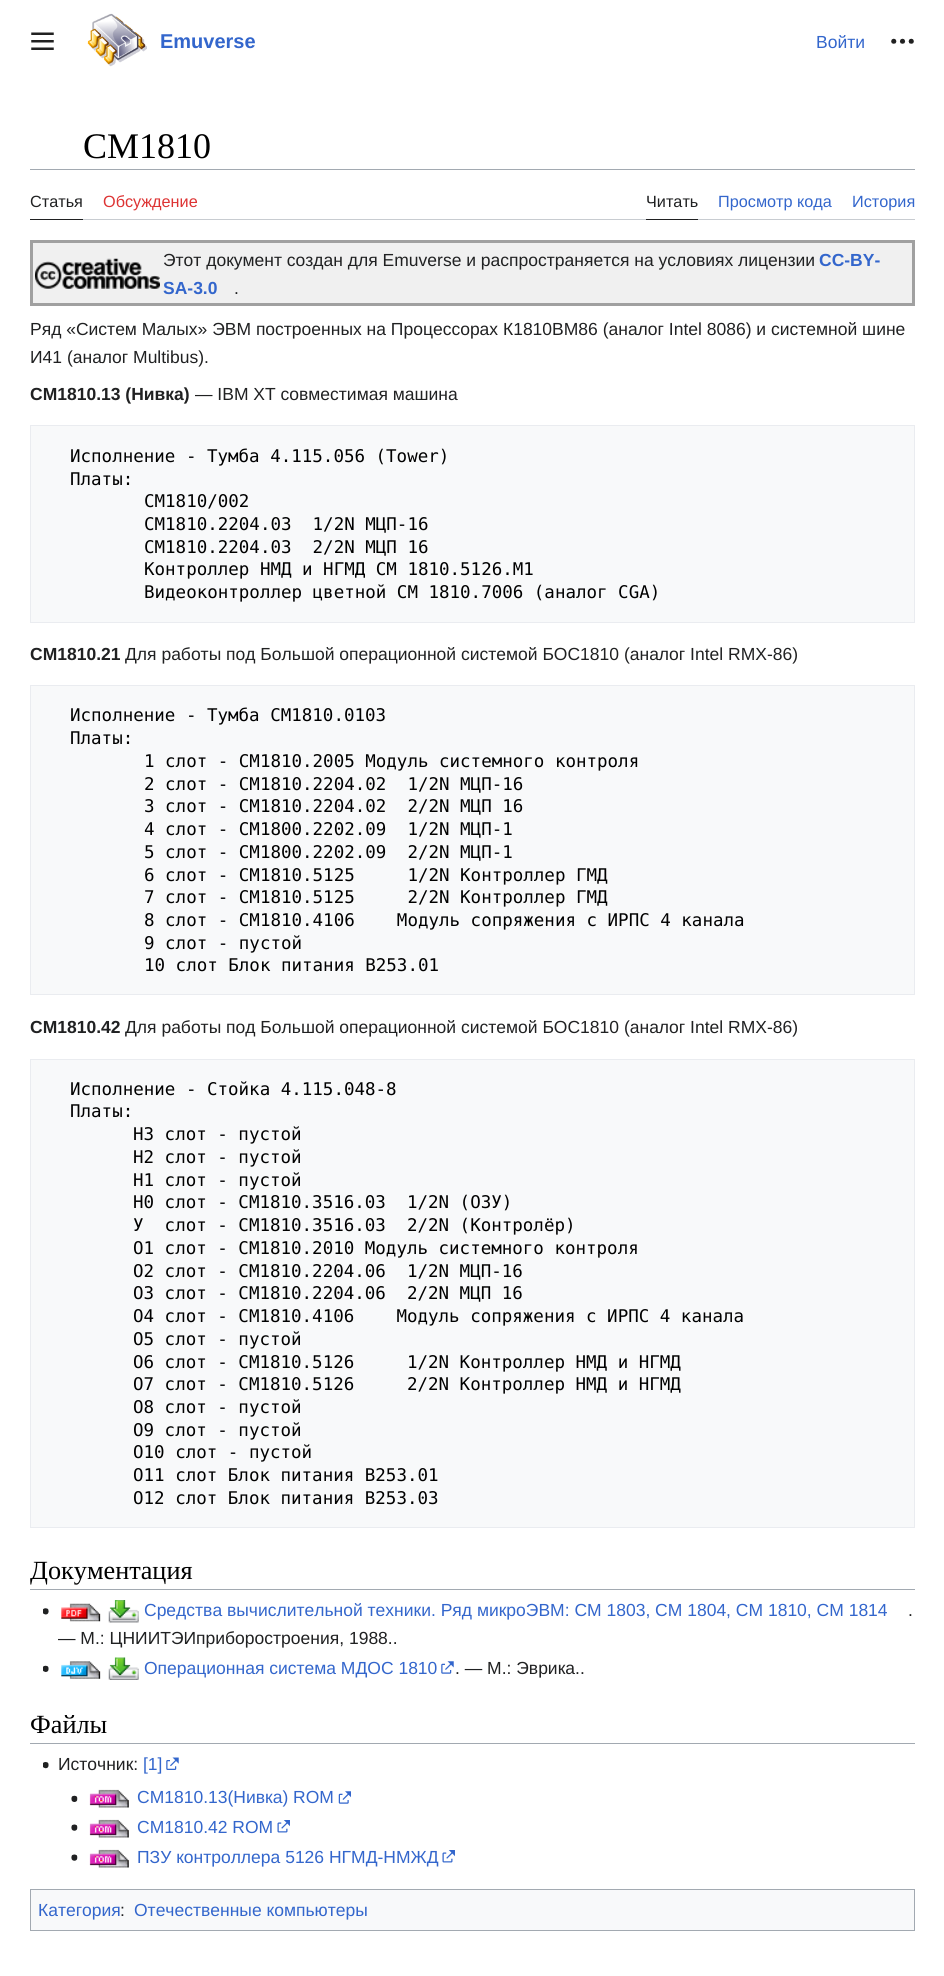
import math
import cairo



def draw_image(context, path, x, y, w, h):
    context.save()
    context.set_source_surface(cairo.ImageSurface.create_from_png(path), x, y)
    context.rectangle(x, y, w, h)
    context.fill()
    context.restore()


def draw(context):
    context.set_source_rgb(1, 1, 1)
    context.paint()
    draw_image(context, "images/1.png", 31, 32, 23, 18)
    draw_image(context, "images/2.png", 87, 13, 60, 54)
    draw_image(context, "images/3.png", 891, 38, 23, 6)
    context.set_source_rgb(162 / 255, 169 / 255, 177 / 255)
    context.rectangle(30, 169, 885, 1)
    context.fill()
    context.set_source_rgb(200 / 255, 204 / 255, 209 / 255)
    context.rectangle(83, 219, 832, 1)
    context.fill()
    context.set_source_rgb(32 / 255, 33 / 255, 34 / 255)
    context.rectangle(30, 219, 53, 1)
    context.fill()
    context.rectangle(646, 219, 52, 1)
    context.fill()
    context.set_source_rgb(240 / 255, 240 / 255, 240 / 255)
    context.rectangle(31.5, 241.5, 882, 63)
    context.fill_preserve()
    context.set_source_rgb(160 / 255, 160 / 255, 160 / 255)
    context.set_line_width(3)
    context.stroke()
    draw_image(context, "images/4.png", 35, 258, 125, 31)
    context.set_source_rgb(248 / 255, 249 / 255, 250 / 255)
    context.rectangle(30.5, 425.5, 884, 197)
    context.fill_preserve()
    context.set_source_rgb(234 / 255, 236 / 255, 240 / 255)
    context.set_line_width(1)
    context.stroke()
    context.set_source_rgb(248 / 255, 249 / 255, 250 / 255)
    context.rectangle(30.5, 685.5, 884, 309)
    context.fill_preserve()
    context.set_source_rgb(234 / 255, 236 / 255, 240 / 255)
    context.stroke()
    context.set_source_rgb(248 / 255, 249 / 255, 250 / 255)
    context.rectangle(30.5, 1059.5, 884, 468)
    context.fill_preserve()
    context.set_source_rgb(234 / 255, 236 / 255, 240 / 255)
    context.stroke()
    context.set_source_rgb(162 / 255, 169 / 255, 177 / 255)
    context.rectangle(30, 1589, 885, 1)
    context.fill()
    draw_image(context, "images/5.png", 43, 1608, 6, 7)
    draw_image(context, "images/6.png", 61, 1603, 40, 19)
    draw_image(context, "images/7.png", 108, 1600, 31, 23)
    draw_image(context, "images/8.png", 43, 1665, 6, 7)
    draw_image(context, "images/9.png", 61, 1661, 40, 18)
    draw_image(context, "images/10.png", 108, 1657, 31, 23)
    draw_image(context, "images/11.png", 441, 1661, 13, 13)
    context.rectangle(30, 1743, 885, 1)
    context.fill()
    draw_image(context, "images/12.png", 43, 1762, 6, 7)
    draw_image(context, "images/13.png", 166, 1757, 13, 13)
    draw_image(context, "images/14.png", 71, 1795, 7, 7)
    draw_image(context, "images/15.png", 89, 1789, 40, 19)
    draw_image(context, "images/16.png", 338, 1791, 13, 13)
    draw_image(context, "images/17.png", 71, 1824, 7, 7)
    draw_image(context, "images/15.png", 89, 1819, 40, 19)
    draw_image(context, "images/18.png", 277, 1820, 13, 13)
    draw_image(context, "images/17.png", 71, 1854, 7, 7)
    draw_image(context, "images/19.png", 89, 1849, 40, 19)
    draw_image(context, "images/18.png", 442, 1850, 13, 13)
    context.set_source_rgb(248 / 255, 249 / 255, 250 / 255)
    context.rectangle(30.5, 1889.5, 884, 41)
    context.fill_preserve()
    context.set_source_rgb(162 / 255, 169 / 255, 177 / 255)
    context.stroke()
    context.select_font_face("Liberation Sans", cairo.FontSlant.NORMAL, cairo.FontWeight.BOLD)
    context.set_font_size(20)
    context.set_source_rgb(51 / 255, 102 / 255, 204 / 255)
    context.move_to(160, 48)
    context.show_text("Emuverse")
    context.select_font_face("Liberation Sans")
    context.set_font_size(17.5)
    context.move_to(816, 48)
    context.show_text("Войти")
    context.select_font_face("Liberation Serif")
    context.set_font_size(36)
    context.set_source_rgb(0, 0, 0)
    context.move_to(83, 158)
    context.show_text("СМ1810")
    context.select_font_face("Liberation Sans")
    context.set_font_size(16.25)
    context.set_source_rgb(32 / 255, 33 / 255, 34 / 255)
    context.move_to(30, 207)
    context.show_text("Статья")
    context.set_source_rgb(221 / 255, 51 / 255, 51 / 255)
    context.move_to(103, 207)
    context.show_text("Обсуждение")
    context.set_source_rgb(32 / 255, 33 / 255, 34 / 255)
    context.move_to(646, 207)
    context.show_text("Читать")
    context.set_source_rgb(51 / 255, 102 / 255, 204 / 255)
    context.move_to(718, 207)
    context.show_text("Просмотр кода")
    context.move_to(852, 207)
    context.show_text("История")
    context.set_font_size(17.5)
    context.set_source_rgb(32 / 255, 33 / 255, 34 / 255)
    context.move_to(163, 266)
    context.show_text("Этот документ создан для Emuverse и распространяется на условиях лицензии")
    context.select_font_face("Liberation Sans", cairo.FontSlant.NORMAL, cairo.FontWeight.BOLD)
    context.set_source_rgb(51 / 255, 102 / 255, 204 / 255)
    context.move_to(819, 266)
    context.show_text("CC-BY-")
    context.move_to(163, 294)
    context.show_text("SA-3.0")
    context.select_font_face("Liberation Sans")
    context.set_source_rgb(32 / 255, 33 / 255, 34 / 255)
    context.move_to(234, 294)
    context.show_text(".")
    context.move_to(30, 335)
    context.show_text("Ряд «Систем Малых» ЭВМ построенных на Процессорах К1810ВМ86 (аналог Intel 8086) и системной шине")
    context.move_to(30, 363)
    context.show_text("И41 (аналог Multibus).")
    context.select_font_face("Liberation Sans", cairo.FontSlant.NORMAL, cairo.FontWeight.BOLD)
    context.move_to(30, 400)
    context.show_text("СМ1810.13 (Нивка)")
    context.select_font_face("Liberation Sans")
    context.move_to(195, 400)
    context.show_text("— IBM XT совместимая машина")
    context.select_font_face("DejaVu Sans Mono")
    context.set_source_rgb(0, 0, 0)
    context.move_to(70, 462)
    context.show_text("Исполнение - Тумба 4.115.056 (Tower)")
    context.move_to(70, 485)
    context.show_text("Платы:")
    context.move_to(144, 507)
    context.show_text("СМ1810/002")
    context.move_to(144, 530)
    context.show_text("СМ1810.2204.03  1/2N МЦП-16")
    context.move_to(144, 553)
    context.show_text("СМ1810.2204.03  2/2N МЦП 16")
    context.move_to(144, 575)
    context.show_text("Контроллер НМД и НГМД СМ 1810.5126.M1")
    context.move_to(144, 598)
    context.show_text("Видеоконтроллер цветной СМ 1810.7006 (аналог CGA)")
    context.select_font_face("Liberation Sans", cairo.FontSlant.NORMAL, cairo.FontWeight.BOLD)
    context.set_source_rgb(32 / 255, 33 / 255, 34 / 255)
    context.move_to(30, 660)
    context.show_text("СМ1810.21")
    context.select_font_face("Liberation Sans")
    context.move_to(125, 660)
    context.show_text("Для работы под Большой операционной системой БОС1810 (аналог Intel RMX-86)")
    context.select_font_face("DejaVu Sans Mono")
    context.set_source_rgb(0, 0, 0)
    context.move_to(70, 721)
    context.show_text("Исполнение - Тумба СМ1810.0103")
    context.move_to(70, 744)
    context.show_text("Платы:")
    context.move_to(144, 767)
    context.show_text("1 слот - СМ1810.2005 Модуль системного контроля")
    context.move_to(144, 790)
    context.show_text("2 слот - СМ1810.2204.02  1/2N МЦП-16")
    context.move_to(144, 812)
    context.show_text("3 слот - СМ1810.2204.02  2/2N МЦП 16")
    context.move_to(144, 835)
    context.show_text("4 слот - СМ1800.2202.09  1/2N МЦП-1")
    context.move_to(144, 858)
    context.show_text("5 слот - СМ1800.2202.09  2/2N МЦП-1")
    context.move_to(144, 881)
    context.show_text("6 слот - СМ1810.5125     1/2N Контроллер ГМД")
    context.move_to(144, 903)
    context.show_text("7 слот - СМ1810.5125     2/2N Контроллер ГМД")
    context.move_to(144, 926)
    context.show_text("8 слот - СМ1810.4106    Модуль сопряжения с ИРПС 4 канала")
    context.move_to(144, 949)
    context.show_text("9 слот - пустой")
    context.move_to(144, 971)
    context.show_text("10 слот Блок питания В253.01")
    context.select_font_face("Liberation Sans", cairo.FontSlant.NORMAL, cairo.FontWeight.BOLD)
    context.set_source_rgb(32 / 255, 33 / 255, 34 / 255)
    context.move_to(30, 1033)
    context.show_text("СМ1810.42")
    context.select_font_face("Liberation Sans")
    context.move_to(125, 1033)
    context.show_text("Для работы под Большой операционной системой БОС1810 (аналог Intel RMX-86)")
    context.select_font_face("DejaVu Sans Mono")
    context.set_source_rgb(0, 0, 0)
    context.move_to(70, 1095)
    context.show_text("Исполнение - Стойка 4.115.048-8")
    context.move_to(70, 1117)
    context.show_text("Платы:")
    context.move_to(133, 1140)
    context.show_text("Н3 слот - пустой")
    context.move_to(133, 1163)
    context.show_text("Н2 слот - пустой")
    context.move_to(133, 1186)
    context.show_text("Н1 слот - пустой")
    context.move_to(133, 1208)
    context.show_text("Н0 слот - СМ1810.3516.03  1/2N (ОЗУ)")
    context.move_to(133, 1231)
    context.show_text("У  слот - СМ1810.3516.03  2/2N (Контролёр)")
    context.move_to(133, 1254)
    context.show_text("О1 слот - СМ1810.2010 Модуль системного контроля")
    context.move_to(133, 1277)
    context.show_text("О2 слот - СМ1810.2204.06  1/2N МЦП-16")
    context.move_to(133, 1299)
    context.show_text("О3 слот - СМ1810.2204.06  2/2N МЦП 16")
    context.move_to(133, 1322)
    context.show_text("О4 слот - СМ1810.4106    Модуль сопряжения с ИРПС 4 канала")
    context.move_to(133, 1345)
    context.show_text("О5 слот - пустой")
    context.move_to(133, 1368)
    context.show_text("О6 слот - СМ1810.5126     1/2N Контроллер НМД и НГМД")
    context.move_to(133, 1390)
    context.show_text("О7 слот - СМ1810.5126     2/2N Контроллер НМД и НГМД")
    context.move_to(133, 1413)
    context.show_text("О8 слот - пустой")
    context.move_to(133, 1436)
    context.show_text("О9 слот - пустой")
    context.move_to(133, 1458)
    context.show_text("О10 слот - пустой")
    context.move_to(133, 1481)
    context.show_text("О11 слот Блок питания В253.01")
    context.move_to(133, 1504)
    context.show_text("О12 слот Блок питания В253.03")
    context.select_font_face("Liberation Serif")
    context.set_font_size(26.25)
    context.move_to(30, 1579)
    context.show_text("Документация")
    context.select_font_face("Liberation Sans")
    context.set_font_size(17.5)
    context.set_source_rgb(51 / 255, 102 / 255, 204 / 255)
    context.move_to(144, 1616)
    context.show_text("Средства вычислительной техники. Ряд микроЭВМ: СМ 1803, СМ 1804, СМ 1810, СМ 1814")
    context.set_source_rgb(32 / 255, 33 / 255, 34 / 255)
    context.move_to(908, 1616)
    context.show_text(".")
    context.move_to(58, 1644)
    context.show_text("— М.: ЦНИИТЭИприборостроения, 1988..")
    context.set_source_rgb(51 / 255, 102 / 255, 204 / 255)
    context.move_to(144, 1674)
    context.show_text("Операционная система МДОС 1810")
    context.set_source_rgb(32 / 255, 33 / 255, 34 / 255)
    context.move_to(455, 1674)
    context.show_text(". — М.: Эврика..")
    context.select_font_face("Liberation Serif")
    context.set_font_size(26.25)
    context.set_source_rgb(0, 0, 0)
    context.move_to(30, 1733)
    context.show_text("Файлы")
    context.select_font_face("Liberation Sans")
    context.set_font_size(17.5)
    context.set_source_rgb(32 / 255, 33 / 255, 34 / 255)
    context.move_to(58, 1770)
    context.show_text("Источник:")
    context.set_source_rgb(51 / 255, 102 / 255, 204 / 255)
    context.move_to(143, 1770)
    context.show_text("[1]")
    context.move_to(137, 1803)
    context.show_text("СМ1810.13(Нивка) ROM")
    context.move_to(137, 1833)
    context.show_text("СМ1810.42 ROM")
    context.move_to(137, 1863)
    context.show_text("ПЗУ контроллера 5126 НГМД-НМЖД")
    context.move_to(38, 1916)
    context.show_text("Категория")
    context.set_source_rgb(32 / 255, 33 / 255, 34 / 255)
    context.move_to(120, 1916)
    context.show_text(":")
    context.set_source_rgb(51 / 255, 102 / 255, 204 / 255)
    context.move_to(134, 1916)
    context.show_text("Отечественные компьютеры")


surface = cairo.ImageSurface(cairo.Format.RGB24, 944, 1976)
context = cairo.Context(surface)
options = cairo.FontOptions()
options.set_hint_metrics(cairo.HintMetrics.OFF)
options.set_hint_style(cairo.HintStyle.NONE)
context.set_font_options(options)
context.set_miter_limit(4)
draw(context)
surface.write_to_png("out.png")
